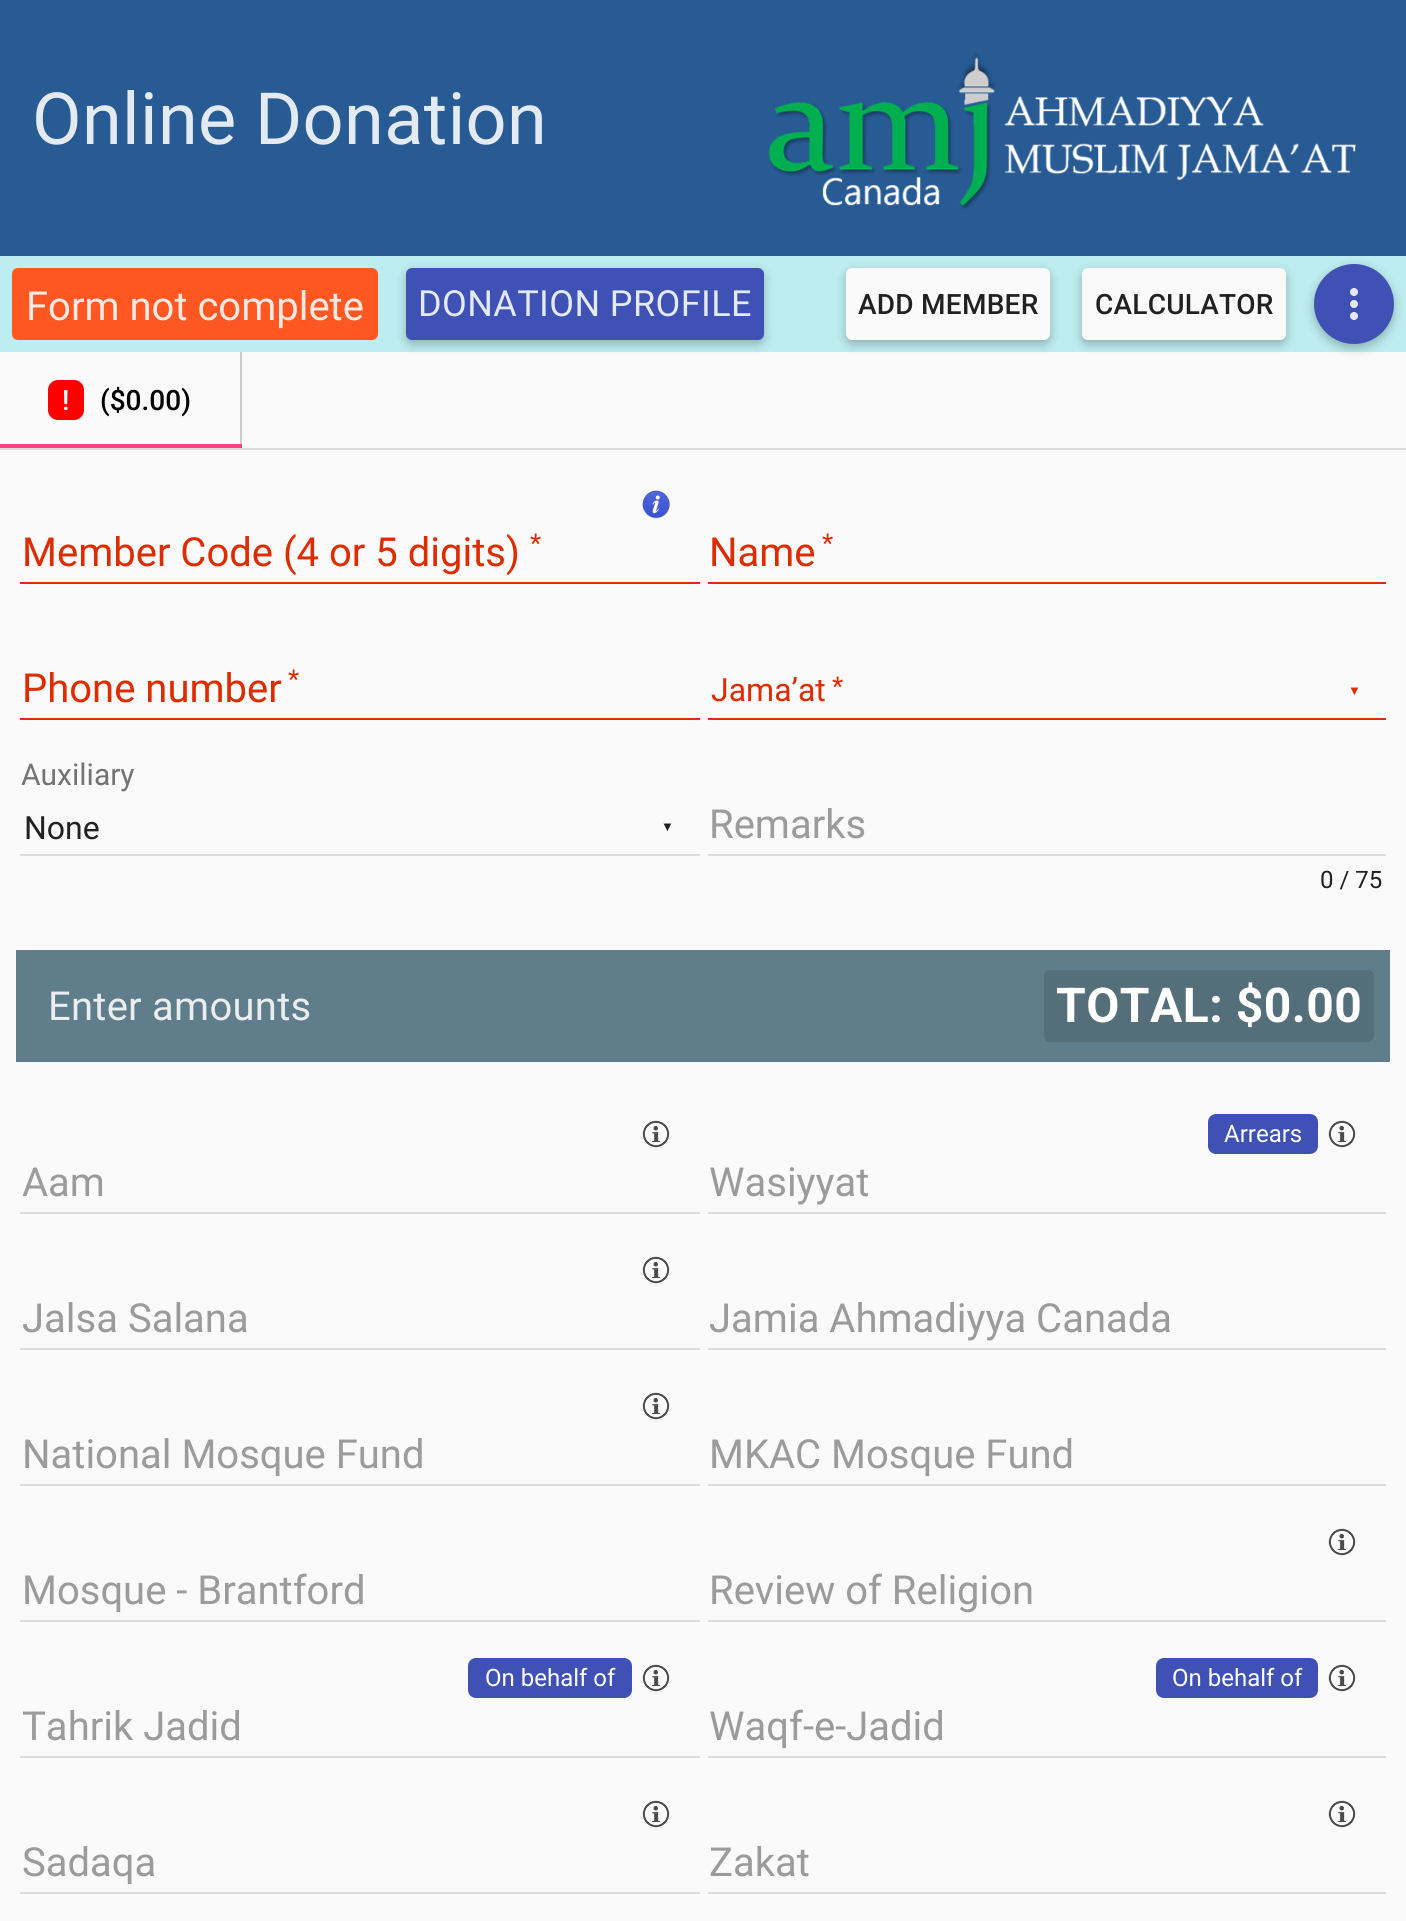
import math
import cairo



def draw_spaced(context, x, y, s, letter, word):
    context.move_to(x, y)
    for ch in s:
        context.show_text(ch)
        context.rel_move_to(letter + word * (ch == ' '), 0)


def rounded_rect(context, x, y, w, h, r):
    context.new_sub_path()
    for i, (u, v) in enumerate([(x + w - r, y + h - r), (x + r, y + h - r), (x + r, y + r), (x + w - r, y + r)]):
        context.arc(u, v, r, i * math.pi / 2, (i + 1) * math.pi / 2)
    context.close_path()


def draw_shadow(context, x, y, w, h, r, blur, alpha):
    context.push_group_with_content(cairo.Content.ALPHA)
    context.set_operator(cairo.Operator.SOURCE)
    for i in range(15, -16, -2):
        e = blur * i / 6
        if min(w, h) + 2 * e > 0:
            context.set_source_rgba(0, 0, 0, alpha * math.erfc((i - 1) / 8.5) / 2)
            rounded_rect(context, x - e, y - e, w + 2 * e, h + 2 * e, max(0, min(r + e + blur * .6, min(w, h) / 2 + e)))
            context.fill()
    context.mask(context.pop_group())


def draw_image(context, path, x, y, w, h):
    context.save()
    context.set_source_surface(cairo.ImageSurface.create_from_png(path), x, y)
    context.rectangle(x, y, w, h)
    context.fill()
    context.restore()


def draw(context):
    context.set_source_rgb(250 / 255, 250 / 255, 250 / 255)
    context.paint()
    context.set_source_rgb(40 / 255, 91 / 255, 148 / 255)
    context.rectangle(0, 0, 1406, 256)
    context.fill()
    draw_image(context, "images/1.png", 768, 51, 589, 159)
    context.set_source_rgb(189 / 255, 237 / 255, 239 / 255)
    context.rectangle(0, 256, 1406, 96)
    context.fill()
    context.set_source_rgb(1, 87 / 255, 34 / 255)
    rounded_rect(context, 12, 268, 366, 72, 6)
    context.fill()
    context.set_source_rgb(0, 0, 0)
    draw_shadow(context, 406, 272, 358, 72, 6, 5, 0.26)
    context.set_source_rgb(63 / 255, 81 / 255, 181 / 255)
    rounded_rect(context, 406, 268, 358, 72, 6)
    context.fill()
    context.set_source_rgb(0, 0, 0)
    draw_shadow(context, 846, 272, 204, 72, 6, 5, 0.26)
    context.set_source_rgb(250 / 255, 250 / 255, 250 / 255)
    rounded_rect(context, 846, 268, 204, 72, 6)
    context.fill()
    context.set_source_rgb(0, 0, 0)
    draw_shadow(context, 1082, 272, 204, 72, 6, 5, 0.26)
    context.set_source_rgb(250 / 255, 250 / 255, 250 / 255)
    rounded_rect(context, 1082, 268, 204, 72, 6)
    context.fill()
    context.set_source_rgb(0, 0, 0)
    draw_shadow(context, 1314, 268, 80, 80, 40, 5, 0.26)
    context.set_source_rgb(63 / 255, 81 / 255, 181 / 255)
    context.arc(1354, 304, 40, 0, 2 * math.pi)
    context.fill()
    draw_image(context, "images/2.png", 1350, 288, 8, 32)
    context.set_source_rgb(220 / 255, 220 / 255, 220 / 255)
    context.rectangle(0, 448, 1406, 2)
    context.fill()
    context.set_source_rgb(204 / 255, 204 / 255, 204 / 255)
    context.rectangle(240, 352, 2, 96)
    context.fill()
    context.set_source_rgb(1, 0, 0)
    rounded_rect(context, 48, 380, 36, 40, 10)
    context.fill()
    context.set_source_rgb(1, 64 / 255, 129 / 255)
    context.rectangle(0, 444, 242, 4)
    context.fill()
    draw_image(context, "images/3.png", 642, 490, 28, 29)
    context.set_source_rgb(221 / 255, 44 / 255, 0)
    context.rectangle(20, 582, 680, 2)
    context.fill()
    context.rectangle(708, 582, 678, 2)
    context.fill()
    context.rectangle(20, 718, 680, 2)
    context.fill()
    context.rectangle(708, 718, 678, 2)
    context.fill()
    context.set_source_rgb(220 / 255, 220 / 255, 220 / 255)
    context.rectangle(20, 854, 680, 2)
    context.fill()
    context.rectangle(708, 854, 678, 2)
    context.fill()
    context.set_source_rgb(96 / 255, 125 / 255, 139 / 255)
    context.rectangle(16, 950, 1374, 112)
    context.fill()
    context.set_source_rgb(84 / 255, 110 / 255, 122 / 255)
    rounded_rect(context, 1044, 970, 330, 72, 6)
    context.fill()
    draw_image(context, "images/4.png", 642, 1120, 28, 28)
    context.set_source_rgb(220 / 255, 220 / 255, 220 / 255)
    context.rectangle(20, 1212, 680, 2)
    context.fill()
    context.set_source_rgb(63 / 255, 81 / 255, 181 / 255)
    rounded_rect(context, 1208, 1114, 110, 40, 8)
    context.fill()
    draw_image(context, "images/4.png", 1328, 1120, 28, 28)
    context.set_source_rgb(220 / 255, 220 / 255, 220 / 255)
    context.rectangle(708, 1212, 678, 2)
    context.fill()
    draw_image(context, "images/4.png", 642, 1256, 28, 28)
    context.rectangle(20, 1348, 680, 2)
    context.fill()
    context.rectangle(708, 1348, 678, 2)
    context.fill()
    draw_image(context, "images/4.png", 642, 1392, 28, 28)
    context.rectangle(20, 1484, 680, 2)
    context.fill()
    context.rectangle(708, 1484, 678, 2)
    context.fill()
    context.rectangle(20, 1620, 680, 2)
    context.fill()
    draw_image(context, "images/4.png", 1328, 1528, 28, 28)
    context.rectangle(708, 1620, 678, 2)
    context.fill()
    context.set_source_rgb(63 / 255, 81 / 255, 181 / 255)
    rounded_rect(context, 468, 1658, 164, 40, 8)
    context.fill()
    draw_image(context, "images/4.png", 642, 1664, 28, 28)
    context.set_source_rgb(220 / 255, 220 / 255, 220 / 255)
    context.rectangle(20, 1756, 680, 2)
    context.fill()
    context.set_source_rgb(63 / 255, 81 / 255, 181 / 255)
    rounded_rect(context, 1156, 1658, 162, 40, 8)
    context.fill()
    draw_image(context, "images/4.png", 1328, 1664, 28, 28)
    context.set_source_rgb(220 / 255, 220 / 255, 220 / 255)
    context.rectangle(708, 1756, 678, 2)
    context.fill()
    draw_image(context, "images/4.png", 642, 1800, 28, 28)
    context.rectangle(20, 1892, 680, 2)
    context.fill()
    draw_image(context, "images/4.png", 1328, 1800, 28, 28)
    context.rectangle(708, 1892, 678, 2)
    context.fill()
    context.select_font_face("Roboto")
    context.set_font_size(72)
    context.set_source_rgb(227 / 255, 234 / 255, 241 / 255)
    draw_spaced(context, 32, 144, "Online Donation", 0.4, 0)
    context.set_font_size(40)
    context.set_source_rgb(1, 233 / 255, 226 / 255)
    context.move_to(26, 320)
    context.show_text("Form not complete")
    context.set_font_size(36)
    context.set_source_rgb(227 / 255, 234 / 255, 241 / 255)
    draw_spaced(context, 418, 316, "DONATION PROFILE", 0.4, 0)
    context.select_font_face("Roboto Medium")
    context.set_font_size(28)
    context.set_source_rgb(33 / 255, 33 / 255, 33 / 255)
    draw_spaced(context, 858, 314, "ADD MEMBER", 0.25, 0)
    draw_spaced(context, 1095, 314, "CALCULATOR", 0.25, 0)
    context.set_source_rgb(1, 1, 1)
    context.move_to(62, 410)
    context.show_text("!")
    context.set_source_rgb(0, 0, 0)
    context.move_to(100, 410)
    context.show_text("($0.00)")
    context.select_font_face("Roboto")
    context.set_font_size(40)
    context.set_source_rgb(221 / 255, 44 / 255, 0)
    context.move_to(22, 566)
    context.show_text("Member Code (4 or 5 digits)")
    context.set_font_size(26)
    context.move_to(530, 552)
    context.show_text("*")
    context.set_font_size(40)
    context.move_to(709, 566)
    context.show_text("Name")
    context.set_font_size(26)
    context.move_to(822, 552)
    context.show_text("*")
    context.set_font_size(40)
    context.move_to(22, 702)
    context.show_text("Phone number")
    context.set_font_size(26)
    context.move_to(288, 688)
    context.show_text("*")
    context.set_font_size(32)
    context.move_to(711, 701)
    context.show_text("Jama’at")
    context.set_font_size(26)
    context.move_to(832, 695)
    context.show_text("*")
    context.select_font_face("Liberation Sans")
    context.set_font_size(13)
    draw_spaced(context, 1348, 695, "▼", 13, 0)
    context.select_font_face("Roboto")
    context.set_font_size(30)
    context.set_source_rgb(115 / 255, 115 / 255, 115 / 255)
    context.move_to(21, 785)
    context.show_text("Auxiliary")
    context.set_font_size(32)
    context.set_source_rgb(33 / 255, 33 / 255, 33 / 255)
    context.move_to(24, 839)
    context.show_text("None")
    context.select_font_face("Liberation Sans")
    context.set_font_size(13)
    draw_spaced(context, 661, 831, "▼", 13, 0)
    context.select_font_face("Roboto")
    context.set_font_size(40)
    context.set_source_rgb(155 / 255, 155 / 255, 155 / 255)
    context.move_to(709, 838)
    context.show_text("Remarks")
    context.set_font_size(24)
    context.set_source_rgb(33 / 255, 33 / 255, 33 / 255)
    context.move_to(1320, 888)
    context.show_text("0 / 75")
    context.set_font_size(40)
    context.set_source_rgb(234 / 255, 238 / 255, 240 / 255)
    draw_spaced(context, 48, 1020, "Enter amounts", 0.25, 0)
    context.select_font_face("Roboto", cairo.FontSlant.NORMAL, cairo.FontWeight.BOLD)
    context.set_font_size(48)
    context.set_source_rgb(1, 1, 1)
    draw_spaced(context, 1056, 1022, "TOTAL: $0.00", 0.5, 0)
    context.select_font_face("Roboto")
    context.set_font_size(40)
    context.set_source_rgb(155 / 255, 155 / 255, 155 / 255)
    context.move_to(22, 1196)
    context.show_text("Aam")
    context.set_font_size(24)
    context.set_source_rgb(1, 1, 1)
    context.move_to(1224, 1142)
    context.show_text("Arrears")
    context.set_font_size(40)
    context.set_source_rgb(155 / 255, 155 / 255, 155 / 255)
    context.move_to(709, 1196)
    context.show_text("Wasiyyat")
    context.move_to(22, 1332)
    context.show_text("Jalsa Salana")
    context.move_to(709, 1332)
    context.show_text("Jamia Ahmadiyya Canada")
    context.move_to(22, 1468)
    context.show_text("National Mosque Fund")
    context.move_to(709, 1468)
    context.show_text("MKAC Mosque Fund")
    context.move_to(22, 1604)
    context.show_text("Mosque - Brantford")
    context.move_to(709, 1604)
    context.show_text("Review of Religion")
    context.set_font_size(24)
    context.set_source_rgb(1, 1, 1)
    context.move_to(485, 1686)
    context.show_text("On behalf of")
    context.set_font_size(40)
    context.set_source_rgb(155 / 255, 155 / 255, 155 / 255)
    context.move_to(22, 1740)
    context.show_text("Tahrik Jadid")
    context.set_font_size(24)
    context.set_source_rgb(1, 1, 1)
    context.move_to(1172, 1686)
    context.show_text("On behalf of")
    context.set_font_size(40)
    context.set_source_rgb(155 / 255, 155 / 255, 155 / 255)
    context.move_to(709, 1740)
    context.show_text("Waqf-e-Jadid")
    context.move_to(22, 1876)
    context.show_text("Sadaqa")
    context.move_to(709, 1876)
    context.show_text("Zakat")


surface = cairo.ImageSurface(cairo.Format.RGB24, 1406, 1921)
context = cairo.Context(surface)
options = cairo.FontOptions()
options.set_hint_metrics(cairo.HintMetrics.OFF)
options.set_hint_style(cairo.HintStyle.NONE)
context.set_font_options(options)
context.set_miter_limit(4)
draw(context)
surface.write_to_png("out.png")
